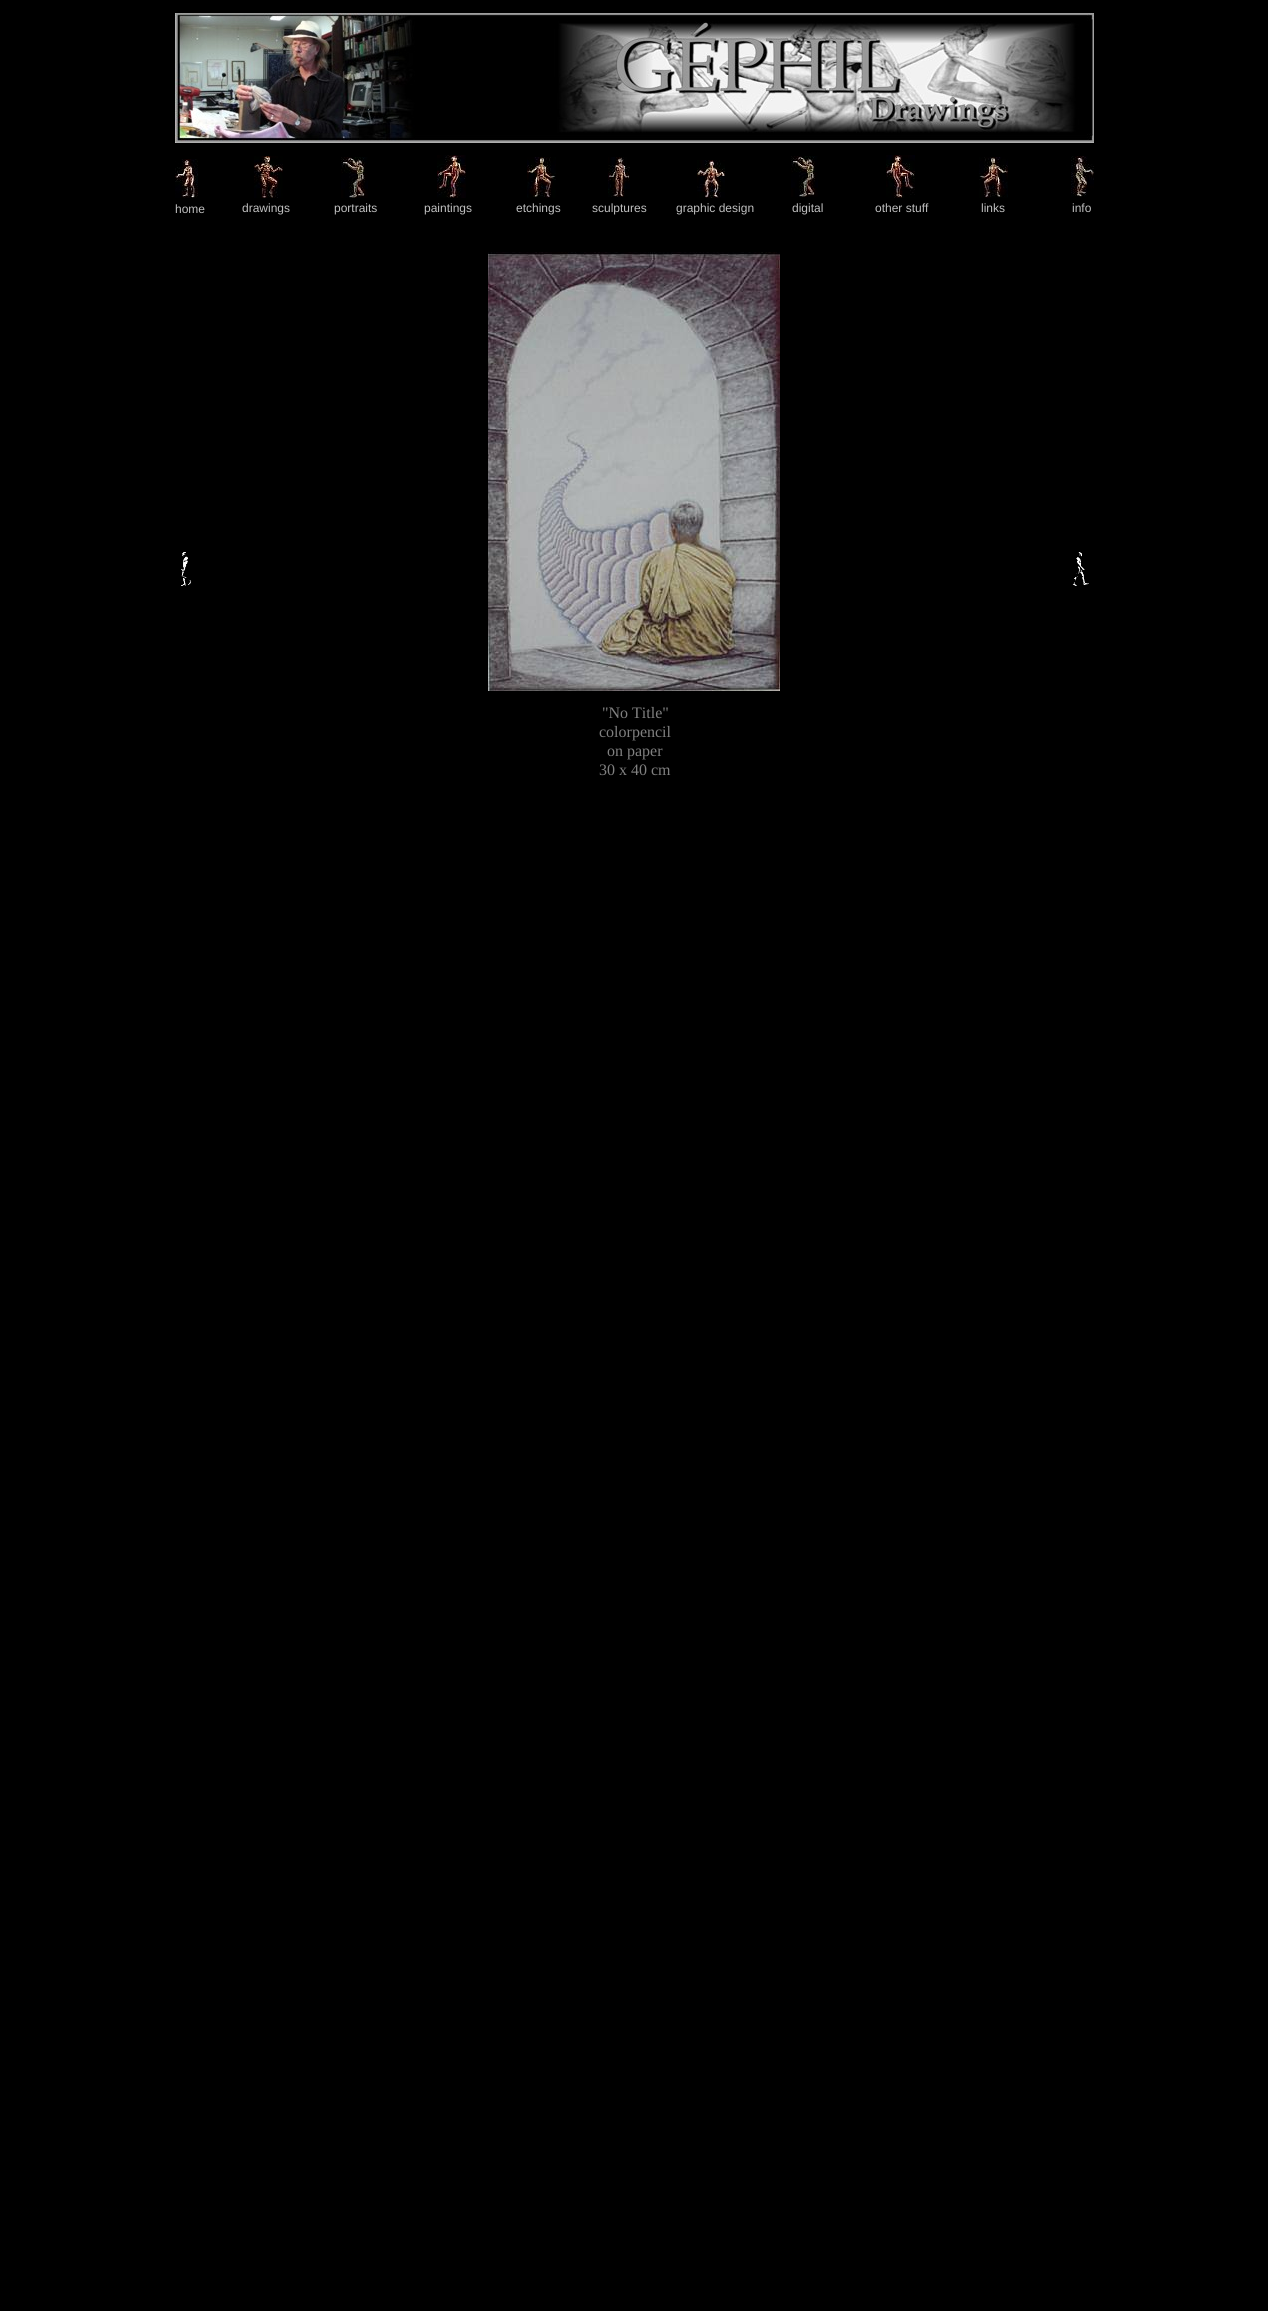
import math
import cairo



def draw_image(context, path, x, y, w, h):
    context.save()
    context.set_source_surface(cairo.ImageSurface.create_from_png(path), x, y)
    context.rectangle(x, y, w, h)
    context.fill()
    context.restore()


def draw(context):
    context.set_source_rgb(0, 0, 0)
    context.paint()
    draw_image(context, "images/1.png", 175, 13, 919, 130)
    draw_image(context, "images/2.png", 175, 159, 23, 39)
    draw_image(context, "images/3.png", 254, 156, 29, 42)
    draw_image(context, "images/4.png", 341, 157, 27, 41)
    draw_image(context, "images/5.png", 437, 155, 29, 43)
    draw_image(context, "images/6.png", 527, 157, 29, 41)
    draw_image(context, "images/7.png", 608, 157, 22, 40)
    draw_image(context, "images/8.png", 697, 160, 28, 38)
    draw_image(context, "images/4.png", 791, 156, 27, 41)
    draw_image(context, "images/9.png", 886, 155, 29, 43)
    draw_image(context, "images/10.png", 979, 157, 29, 41)
    draw_image(context, "images/11.png", 1071, 156, 23, 41)
    draw_image(context, "images/12.png", 181, 552, 11, 34)
    draw_image(context, "images/13.png", 488, 252, 292, 439)
    draw_image(context, "images/14.png", 1072, 552, 17, 34)
    context.select_font_face("Liberation Sans")
    context.set_font_size(12)
    context.set_source_rgb(192 / 255, 192 / 255, 192 / 255)
    context.move_to(175, 213)
    context.show_text("home")
    context.move_to(242, 212)
    context.show_text("drawings")
    context.move_to(334, 212)
    context.show_text("portraits")
    context.move_to(424, 212)
    context.show_text("paintings")
    context.move_to(516, 212)
    context.show_text("etchings")
    context.move_to(592, 212)
    context.show_text("sculptures")
    context.move_to(676, 212)
    context.show_text("graphic design")
    context.move_to(792, 212)
    context.show_text("digital")
    context.move_to(875, 212)
    context.show_text("other stuff")
    context.move_to(981, 212)
    context.show_text("links")
    context.move_to(1072, 212)
    context.show_text("info")
    context.select_font_face("Liberation Serif")
    context.set_font_size(16)
    context.set_source_rgb(128 / 255, 128 / 255, 128 / 255)
    context.move_to(602, 718)
    context.show_text("\"No Title\"")
    context.move_to(599, 737)
    context.show_text("colorpencil")
    context.move_to(607, 756)
    context.show_text("on paper")
    context.move_to(599, 775)
    context.show_text("30 x 40 cm")


surface = cairo.ImageSurface(cairo.Format.RGB24, 1268, 2311)
context = cairo.Context(surface)
options = cairo.FontOptions()
options.set_hint_metrics(cairo.HintMetrics.OFF)
options.set_hint_style(cairo.HintStyle.NONE)
context.set_font_options(options)
context.set_miter_limit(4)
draw(context)
surface.write_to_png("out.png")
